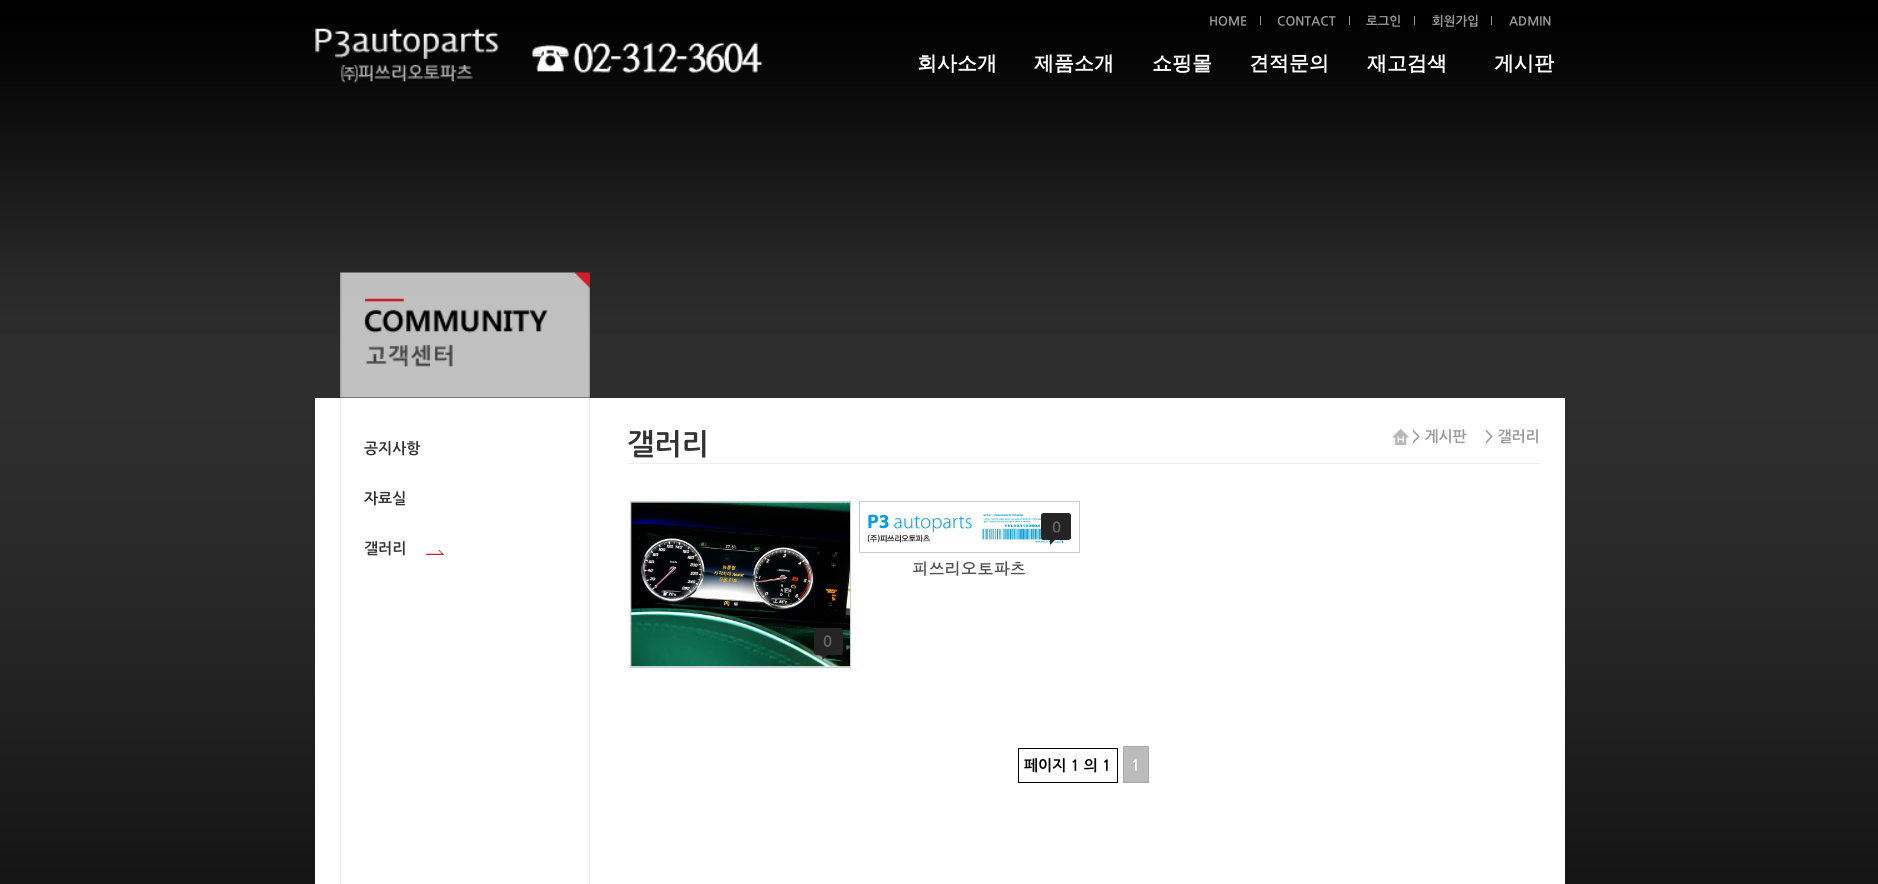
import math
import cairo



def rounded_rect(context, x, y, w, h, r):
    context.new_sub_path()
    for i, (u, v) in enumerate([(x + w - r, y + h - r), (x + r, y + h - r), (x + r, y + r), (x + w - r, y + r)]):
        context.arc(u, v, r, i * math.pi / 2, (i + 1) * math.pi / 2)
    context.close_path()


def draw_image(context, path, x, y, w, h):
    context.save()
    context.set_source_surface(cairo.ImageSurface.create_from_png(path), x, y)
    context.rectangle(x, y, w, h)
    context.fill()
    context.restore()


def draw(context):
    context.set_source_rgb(1, 1, 1)
    context.paint()
    draw_image(context, "images/1.png", 0, 0, 1878, 884)
    context.set_source_rgb(153 / 255, 153 / 255, 153 / 255)
    context.rectangle(1260, 16, 1, 9)
    context.fill()
    context.rectangle(1349, 16, 1, 9)
    context.fill()
    context.rectangle(1414, 16, 1, 9)
    context.fill()
    context.rectangle(1491, 16, 1, 9)
    context.fill()
    draw_image(context, "images/2.png", 315, 28, 184, 55)
    draw_image(context, "images/3.png", 532, 42, 231, 31)
    context.set_source_rgb(1, 1, 1)
    context.rectangle(315, 398, 1250, 486)
    context.fill()
    context.set_source_rgb(232 / 255, 232 / 255, 232 / 255)
    context.rectangle(340, 398, 1, 486)
    context.fill()
    draw_image(context, "images/4.png", 340, 272, 250, 126)
    draw_image(context, "images/5.png", 426, 550, 18, 5)
    context.rectangle(589, 398, 1, 486)
    context.fill()
    context.set_source_rgb(238 / 255, 238 / 255, 238 / 255)
    context.rectangle(628, 463, 912, 1)
    context.fill()
    draw_image(context, "images/6.png", 1392, 428, 17, 17)
    context.rectangle(859.5, 501.5, 220, 51)
    context.set_source_rgb(204 / 255, 204 / 255, 204 / 255)
    context.set_line_width(1)
    context.stroke()
    draw_image(context, "images/7.png", 867, 513, 203, 31)
    context.set_source_rgb(36 / 255, 36 / 255, 36 / 255)
    rounded_rect(context, 1041, 513, 30, 27, 2.5)
    context.fill()
    context.rectangle(630.5, 501.5, 220, 166)
    context.set_source_rgb(204 / 255, 204 / 255, 204 / 255)
    context.stroke()
    draw_image(context, "images/8.png", 631, 502, 219, 165)
    context.set_source_rgb(36 / 255, 36 / 255, 36 / 255)
    rounded_rect(context, 814, 628, 29, 27, 2.5)
    context.fill()
    context.new_path()
    context.move_to(822.5, 647.5)
    context.line_to(835, 647.5)
    context.line_to(822.5, 660)
    context.close_path()
    context.fill()
    context.rectangle(1018.5, 748.5, 99, 34)
    context.set_source_rgb(0, 0, 0)
    context.stroke()
    context.set_source_rgb(187 / 255, 187 / 255, 187 / 255)
    context.rectangle(1123.5, 746.5, 25, 36)
    context.fill_preserve()
    context.set_source_rgb(170 / 255, 170 / 255, 170 / 255)
    context.stroke()
    context.select_font_face("NanumGothic", cairo.FontSlant.NORMAL, cairo.FontWeight.BOLD)
    context.set_font_size(12.5)
    context.set_source_rgb(155 / 255, 155 / 255, 155 / 255)
    context.move_to(1209, 25)
    context.show_text("HOME")
    context.move_to(1277, 25)
    context.show_text("CONTACT")
    context.move_to(1366, 25)
    context.show_text("로그인")
    context.move_to(1432, 25)
    context.show_text("회원가입")
    context.move_to(1509, 25)
    context.show_text("ADMIN")
    context.select_font_face("WenQuanYi Zen Hei", cairo.FontSlant.NORMAL, cairo.FontWeight.BOLD)
    context.set_font_size(20)
    context.set_source_rgb(1, 1, 1)
    context.move_to(917, 70)
    context.show_text("회사소개")
    context.move_to(1034, 70)
    context.show_text("제품소개")
    context.move_to(1152, 70)
    context.show_text("쇼핑몰")
    context.move_to(1249, 70)
    context.show_text("견적문의")
    context.move_to(1367, 70)
    context.show_text("재고검색")
    context.move_to(1494, 70)
    context.show_text("게시판")
    context.select_font_face("NanumGothic", cairo.FontSlant.NORMAL, cairo.FontWeight.BOLD)
    context.set_font_size(15)
    context.set_source_rgb(51 / 255, 51 / 255, 51 / 255)
    context.move_to(364, 453)
    context.show_text("공지사항")
    context.move_to(364, 503)
    context.show_text("자료실")
    context.move_to(364, 553)
    context.show_text("갤러리")
    context.set_font_size(29)
    context.move_to(627, 453)
    context.show_text("갤러리")
    context.set_font_size(15)
    context.set_source_rgb(155 / 255, 155 / 255, 155 / 255)
    context.move_to(1412, 441)
    context.show_text("> 게시판")
    context.move_to(1485, 441)
    context.show_text("> 갤러리")
    context.set_source_rgb(102 / 255, 102 / 255, 102 / 255)
    context.move_to(1052, 532)
    context.show_text("0")
    context.set_source_rgb(36 / 255, 36 / 255, 36 / 255)
    context.new_path()
    context.move_to(1050, 532.5)
    context.line_to(1062.5, 532.5)
    context.line_to(1050, 545)
    context.close_path()
    context.fill()
    context.select_font_face("Dotum", cairo.FontSlant.NORMAL, cairo.FontWeight.BOLD)
    context.set_font_size(16.25)
    context.set_source_rgb(80 / 255, 80 / 255, 80 / 255)
    context.move_to(912, 575)
    context.show_text("피쓰리오토파츠")
    context.select_font_face("NanumGothic", cairo.FontSlant.NORMAL, cairo.FontWeight.BOLD)
    context.set_font_size(15)
    context.set_source_rgb(102 / 255, 102 / 255, 102 / 255)
    context.move_to(823, 646)
    context.show_text("0")
    context.set_source_rgb(0, 0, 0)
    context.move_to(1024, 770)
    context.show_text("페이지 1 의 1")
    context.set_source_rgb(1, 1, 1)
    context.move_to(1131, 770)
    context.show_text("1")


surface = cairo.ImageSurface(cairo.Format.RGB24, 1878, 884)
context = cairo.Context(surface)
options = cairo.FontOptions()
options.set_hint_metrics(cairo.HintMetrics.OFF)
options.set_hint_style(cairo.HintStyle.NONE)
context.set_font_options(options)
context.set_miter_limit(4)
draw(context)
surface.write_to_png("out.png")
